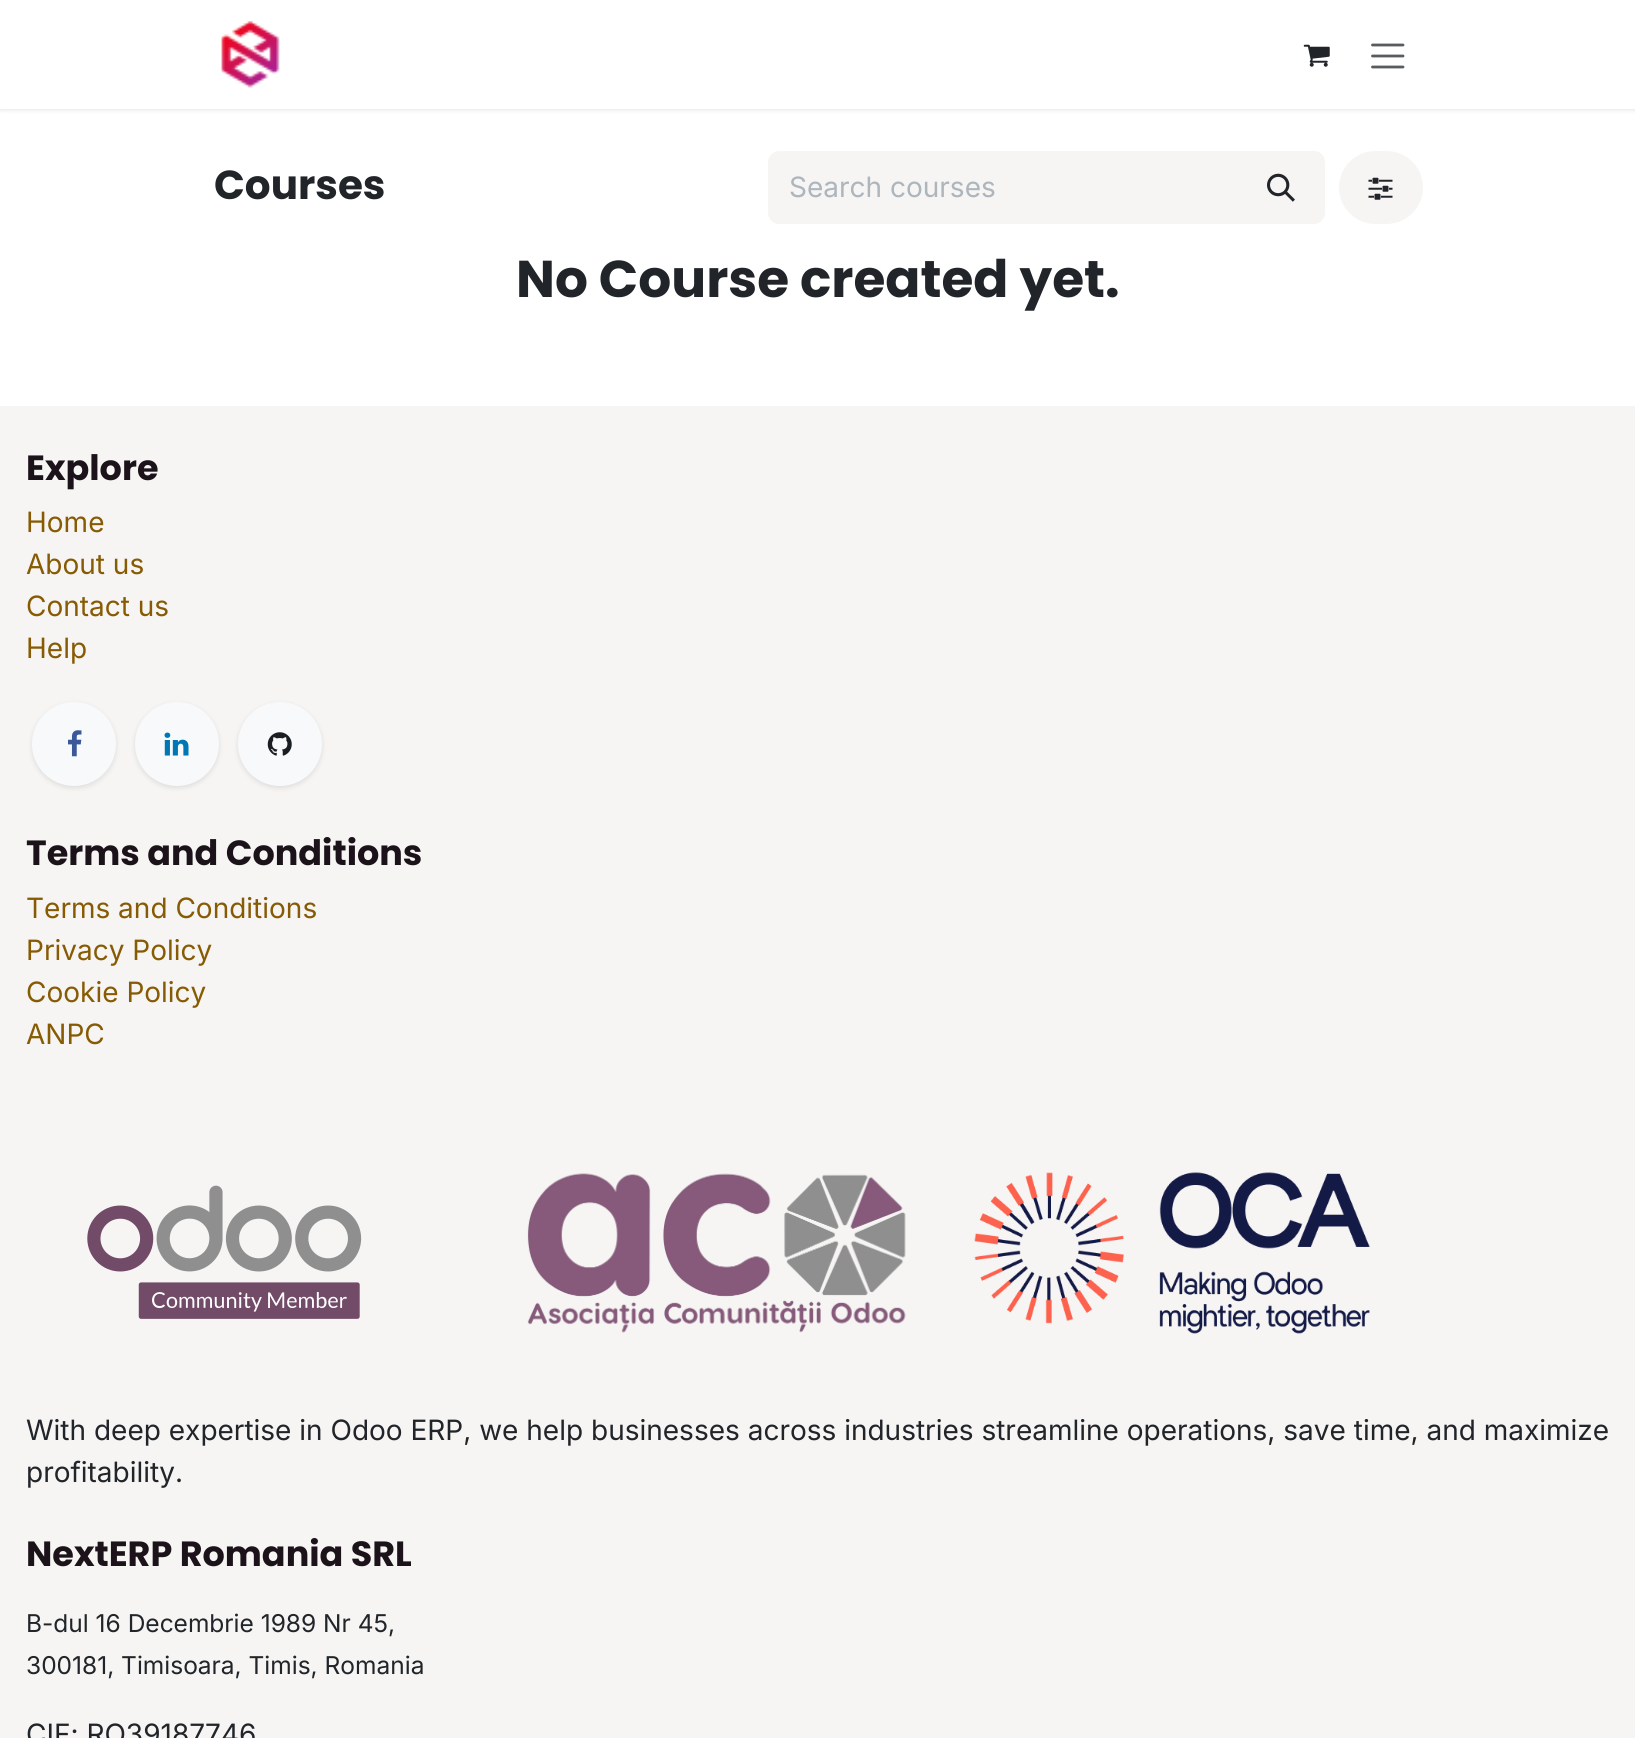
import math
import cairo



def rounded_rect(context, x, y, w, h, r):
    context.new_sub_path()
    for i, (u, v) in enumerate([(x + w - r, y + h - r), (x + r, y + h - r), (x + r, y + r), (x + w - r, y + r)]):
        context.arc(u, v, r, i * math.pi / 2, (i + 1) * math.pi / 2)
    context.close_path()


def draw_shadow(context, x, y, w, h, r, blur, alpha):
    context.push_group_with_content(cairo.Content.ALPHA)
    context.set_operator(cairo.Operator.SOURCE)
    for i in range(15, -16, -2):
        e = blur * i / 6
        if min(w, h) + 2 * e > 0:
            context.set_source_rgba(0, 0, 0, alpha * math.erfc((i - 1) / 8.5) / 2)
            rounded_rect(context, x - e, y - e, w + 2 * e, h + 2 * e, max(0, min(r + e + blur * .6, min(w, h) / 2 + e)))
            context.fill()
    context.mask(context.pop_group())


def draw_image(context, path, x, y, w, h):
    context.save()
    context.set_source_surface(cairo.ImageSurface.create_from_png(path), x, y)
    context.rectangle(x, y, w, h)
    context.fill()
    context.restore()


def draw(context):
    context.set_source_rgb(1, 1, 1)
    context.paint()
    context.set_source_rgb(0, 0, 0)
    draw_shadow(context, 0, 2, 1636, 108, 0, 2.5, 0.1)
    context.set_source_rgb(1, 1, 1)
    context.rectangle(0, 0, 1635, 109)
    context.fill()
    draw_image(context, "images/1.png", 221, 20, 59, 68)
    draw_image(context, "images/2.png", 1303, 44, 27, 23)
    context.new_path()
    context.move_to(1372.5, 45)
    context.line_to(1403, 45)
    context.move_to(1372.5, 56)
    context.line_to(1403, 56)
    context.move_to(1372.5, 67)
    context.line_to(1403, 67)
    context.set_source_rgb(89 / 255, 92 / 255, 95 / 255)
    context.set_line_width(2.8)
    context.set_line_cap(cairo.LineCap.ROUND)
    context.stroke()
    context.set_source_rgb(246 / 255, 245 / 255, 244 / 255)
    context.new_path()
    context.move_to(779, 151)
    context.line_to(1239, 151)
    context.line_to(1239, 224)
    context.line_to(779, 224)
    context.curve_to(773, 224, 768, 219, 768, 213)
    context.line_to(768, 162)
    context.curve_to(768, 156, 773, 151, 779, 151)
    context.close_path()
    context.fill()
    context.new_path()
    context.move_to(1238, 152)
    context.line_to(1314, 152)
    context.curve_to(1319.5, 152, 1324, 156.5, 1324, 162)
    context.line_to(1324, 213)
    context.curve_to(1324, 218.5, 1319.5, 223, 1314, 223)
    context.line_to(1238, 223)
    context.close_path()
    context.fill_preserve()
    context.set_line_width(2)
    context.set_line_cap(cairo.LineCap.BUTT)
    context.stroke()
    draw_image(context, "images/3.png", 1267, 173, 28, 29)
    rounded_rect(context, 1340, 152, 82, 71, 35.5)
    context.fill_preserve()
    context.stroke()
    draw_image(context, "images/4.png", 1368, 177, 25, 23)
    context.rectangle(0, 406, 1635, 1332)
    context.fill()
    context.set_source_rgb(0, 0, 0)
    draw_shadow(context, 32, 704, 84, 84, 42, 2.5, 0.1)
    context.set_source_rgb(248 / 255, 249 / 255, 250 / 255)
    context.arc(74, 744, 42, 0, 2 * math.pi)
    context.fill()
    draw_image(context, "images/5.png", 68, 730, 14, 27)
    context.set_source_rgb(0, 0, 0)
    draw_shadow(context, 135, 704, 84, 84, 42, 2.5, 0.1)
    context.set_source_rgb(248 / 255, 249 / 255, 250 / 255)
    context.arc(177, 744, 42, 0, 2 * math.pi)
    context.fill()
    draw_image(context, "images/6.png", 164, 732, 25, 24)
    context.set_source_rgb(0, 0, 0)
    draw_shadow(context, 238, 704, 84, 84, 42, 2.5, 0.1)
    context.set_source_rgb(248 / 255, 249 / 255, 250 / 255)
    context.arc(280, 744, 42, 0, 2 * math.pi)
    context.fill()
    draw_image(context, "images/7.png", 267, 732, 25, 24)
    draw_image(context, "images/8.png", 87, 1185, 275, 134)
    draw_image(context, "images/9.png", 527, 1173, 379, 160)
    draw_image(context, "images/10.png", 974, 1172, 396, 162)
    context.select_font_face("Poppins", cairo.FontSlant.NORMAL, cairo.FontWeight.BOLD)
    context.set_font_size(40.5)
    context.set_source_rgb(33 / 255, 37 / 255, 41 / 255)
    context.move_to(214, 199)
    context.show_text("Courses")
    context.select_font_face("Inter")
    context.set_font_size(28)
    context.set_source_rgb(173 / 255, 181 / 255, 189 / 255)
    context.move_to(789, 197)
    context.show_text("Search courses")
    context.select_font_face("Poppins", cairo.FontSlant.NORMAL, cairo.FontWeight.BOLD)
    context.set_font_size(51.75)
    context.set_source_rgb(33 / 255, 37 / 255, 41 / 255)
    context.move_to(516, 297)
    context.show_text("No Course created yet.")
    context.set_font_size(35)
    context.set_source_rgb(27 / 255, 19 / 255, 25 / 255)
    context.move_to(26, 480)
    context.show_text("Explore")
    context.select_font_face("Inter")
    context.set_font_size(28)
    context.set_source_rgb(135 / 255, 91 / 255, 4 / 255)
    context.move_to(26, 532)
    context.show_text("Home")
    context.move_to(26, 574)
    context.show_text("About us")
    context.move_to(26, 616)
    context.show_text("Contact us")
    context.move_to(26, 658)
    context.show_text("Help")
    context.select_font_face("Poppins", cairo.FontSlant.NORMAL, cairo.FontWeight.BOLD)
    context.set_font_size(35)
    context.set_source_rgb(27 / 255, 19 / 255, 25 / 255)
    context.move_to(26, 865)
    context.show_text("Terms and Conditions")
    context.select_font_face("Inter")
    context.set_font_size(28)
    context.set_source_rgb(135 / 255, 91 / 255, 4 / 255)
    context.move_to(26, 918)
    context.show_text("Terms and Conditions")
    context.move_to(26, 960)
    context.show_text("Privacy Policy")
    context.move_to(26, 1002)
    context.show_text("Cookie Policy")
    context.move_to(26, 1044)
    context.show_text("ANPC")
    context.set_source_rgb(33 / 255, 37 / 255, 41 / 255)
    context.move_to(26, 1440)
    context.show_text("With deep expertise in Odoo ERP, we help businesses across industries streamline operations, save time, and maximize")
    context.move_to(26, 1482)
    context.show_text("profitability.")
    context.select_font_face("Poppins", cairo.FontSlant.NORMAL, cairo.FontWeight.BOLD)
    context.set_font_size(35)
    context.set_source_rgb(27 / 255, 19 / 255, 25 / 255)
    context.move_to(26, 1566)
    context.show_text("NextERP Romania SRL")
    context.select_font_face("Inter")
    context.set_font_size(24.5)
    context.set_source_rgb(33 / 255, 37 / 255, 41 / 255)
    context.move_to(26, 1632)
    context.show_text("B-dul 16 Decembrie 1989 Nr 45,")
    context.move_to(26, 1674)
    context.show_text("300181, Timisoara, Timis, Romania")
    context.set_font_size(28)
    context.move_to(26, 1744)
    context.show_text("CIF: RO39187746")


surface = cairo.ImageSurface(cairo.Format.RGB24, 1635, 1738)
context = cairo.Context(surface)
options = cairo.FontOptions()
options.set_hint_metrics(cairo.HintMetrics.OFF)
options.set_hint_style(cairo.HintStyle.NONE)
context.set_font_options(options)
context.set_miter_limit(4)
draw(context)
surface.write_to_png("out.png")
